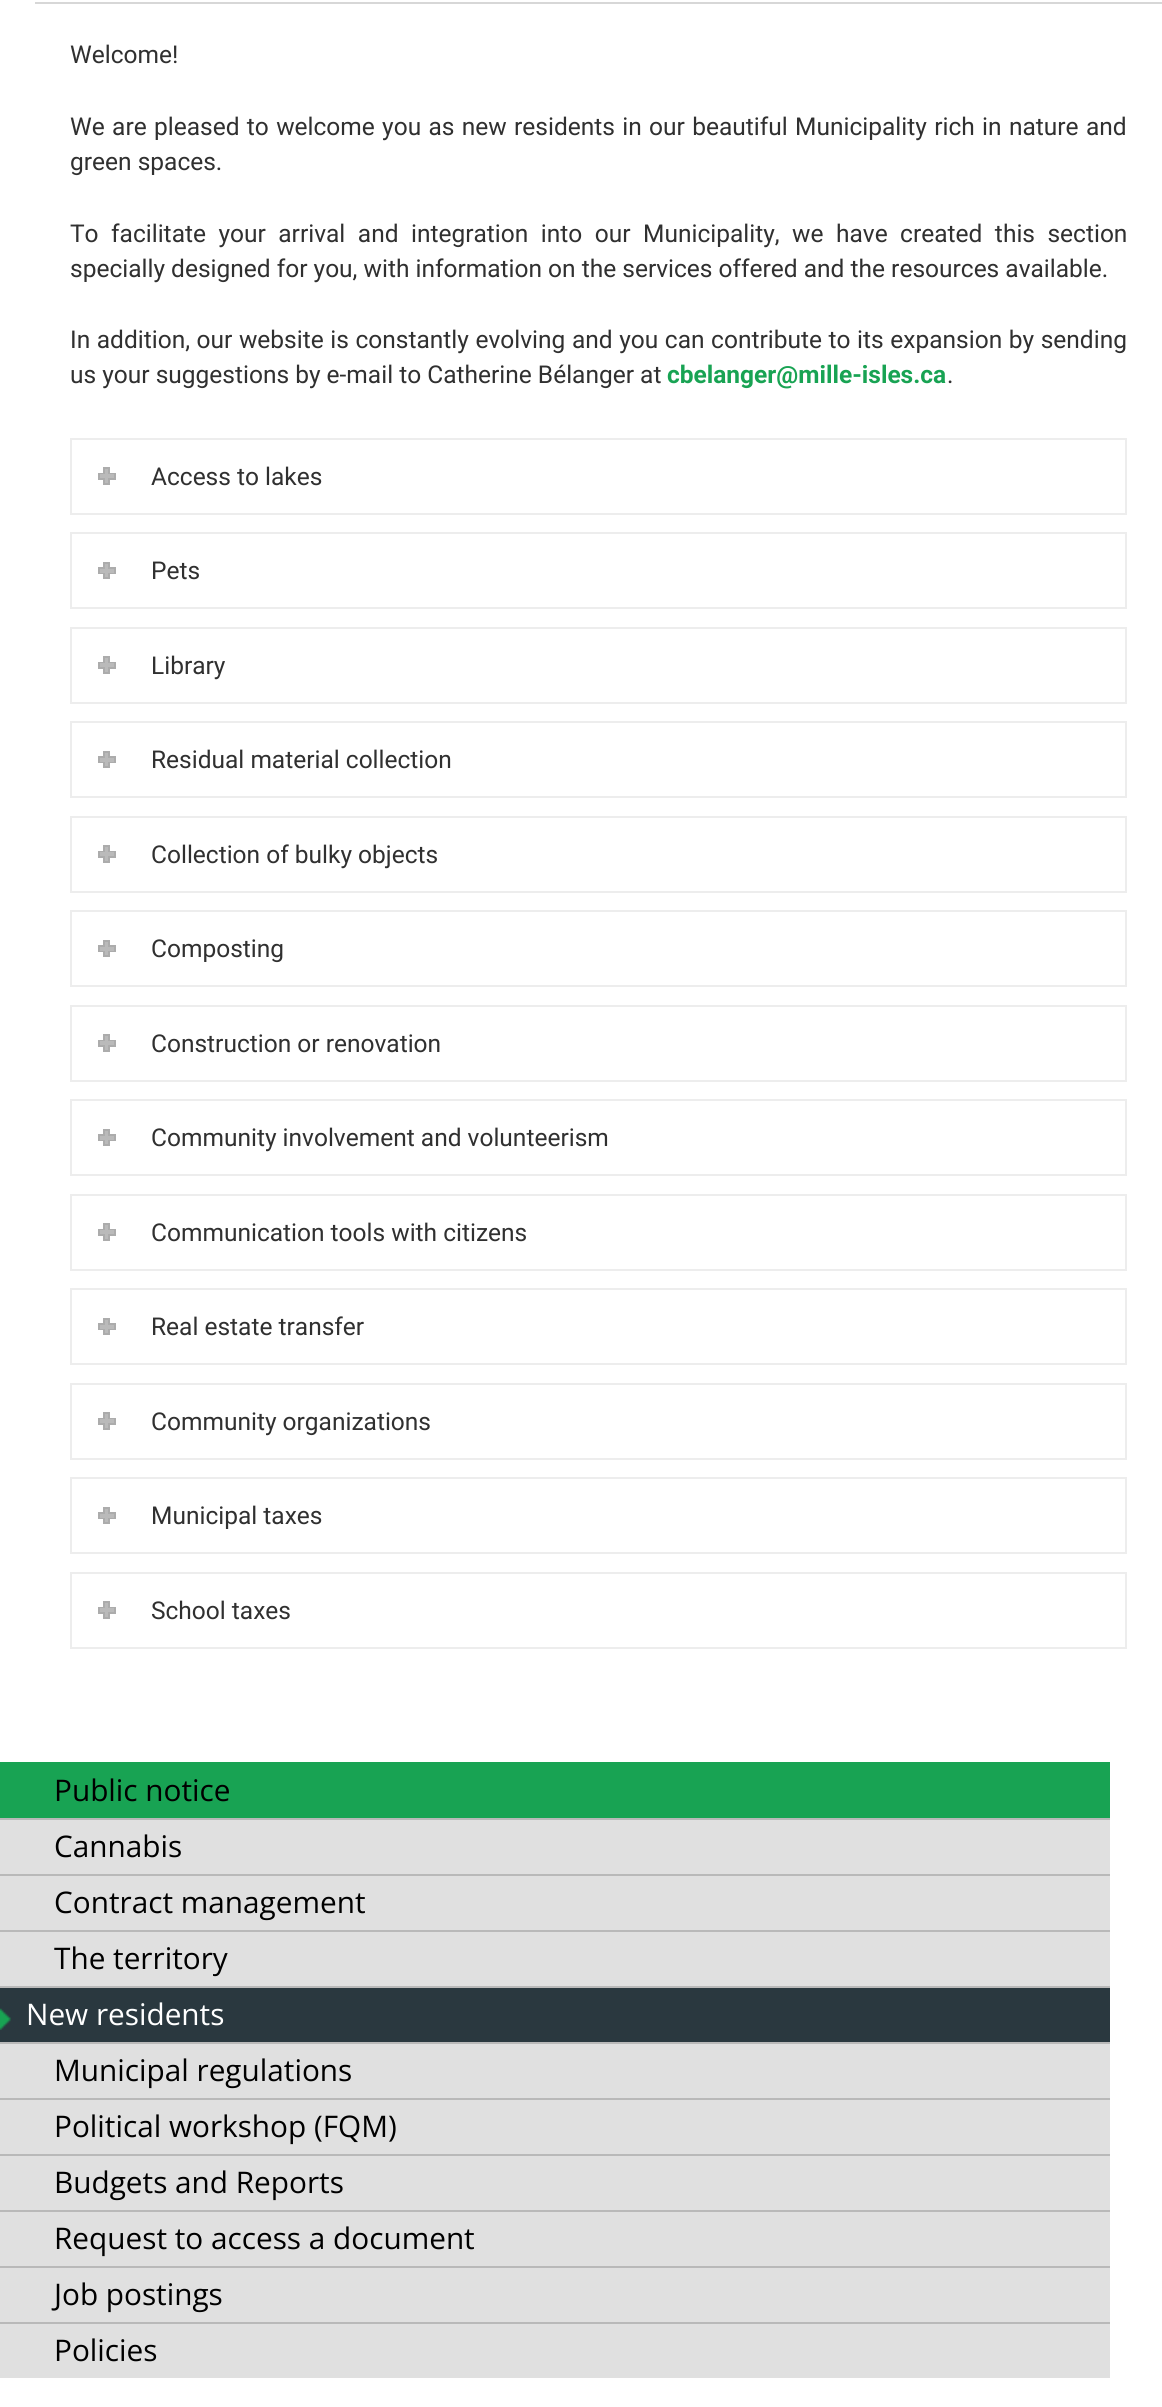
import math
import cairo



def draw_spaced(context, x, y, s, letter, word):
    context.move_to(x, y)
    for ch in s:
        context.show_text(ch)
        context.rel_move_to(letter + word * (ch == ' '), 0)


def draw_image(context, path, x, y, w, h):
    context.save()
    context.set_source_surface(cairo.ImageSurface.create_from_png(path), x, y)
    context.rectangle(x, y, w, h)
    context.fill()
    context.restore()


def draw(context):
    context.set_source_rgb(1, 1, 1)
    context.paint()
    context.set_source_rgb(215 / 255, 215 / 255, 215 / 255)
    context.rectangle(35, 2, 1127, 2)
    context.fill()
    context.rectangle(71, 439, 1055, 75)
    context.set_source_rgb(237 / 255, 237 / 255, 237 / 255)
    context.stroke()
    context.rectangle(99, 474, 16, 5)
    context.set_source_rgb(172 / 255, 172 / 255, 172 / 255)
    context.stroke()
    context.set_source_rgb(186 / 255, 186 / 255, 186 / 255)
    context.rectangle(104, 468, 5, 16)
    context.fill_preserve()
    context.set_source_rgb(172 / 255, 172 / 255, 172 / 255)
    context.stroke()
    context.set_source_rgb(186 / 255, 186 / 255, 186 / 255)
    context.rectangle(100, 474, 14, 4)
    context.fill()
    context.rectangle(71, 533, 1055, 75)
    context.set_source_rgb(237 / 255, 237 / 255, 237 / 255)
    context.stroke()
    context.rectangle(99, 568, 16, 5)
    context.set_source_rgb(172 / 255, 172 / 255, 172 / 255)
    context.stroke()
    context.set_source_rgb(186 / 255, 186 / 255, 186 / 255)
    context.rectangle(104, 563, 5, 15)
    context.fill_preserve()
    context.set_source_rgb(172 / 255, 172 / 255, 172 / 255)
    context.stroke()
    context.set_source_rgb(186 / 255, 186 / 255, 186 / 255)
    context.rectangle(100, 569, 14, 4)
    context.fill()
    context.rectangle(71, 628, 1055, 75)
    context.set_source_rgb(237 / 255, 237 / 255, 237 / 255)
    context.stroke()
    context.rectangle(99, 663, 16, 5)
    context.set_source_rgb(172 / 255, 172 / 255, 172 / 255)
    context.stroke()
    context.set_source_rgb(186 / 255, 186 / 255, 186 / 255)
    context.rectangle(104, 657, 5, 16)
    context.fill_preserve()
    context.set_source_rgb(172 / 255, 172 / 255, 172 / 255)
    context.stroke()
    context.set_source_rgb(186 / 255, 186 / 255, 186 / 255)
    context.rectangle(100, 663, 14, 4)
    context.fill()
    context.rectangle(71, 722, 1055, 75)
    context.set_source_rgb(237 / 255, 237 / 255, 237 / 255)
    context.stroke()
    context.rectangle(99, 757, 16, 5)
    context.set_source_rgb(172 / 255, 172 / 255, 172 / 255)
    context.stroke()
    context.set_source_rgb(186 / 255, 186 / 255, 186 / 255)
    context.rectangle(104, 752, 5, 15)
    context.fill_preserve()
    context.set_source_rgb(172 / 255, 172 / 255, 172 / 255)
    context.stroke()
    context.set_source_rgb(186 / 255, 186 / 255, 186 / 255)
    context.rectangle(100, 758, 14, 4)
    context.fill()
    context.rectangle(71, 817, 1055, 75)
    context.set_source_rgb(237 / 255, 237 / 255, 237 / 255)
    context.stroke()
    context.rectangle(99, 852, 16, 5)
    context.set_source_rgb(172 / 255, 172 / 255, 172 / 255)
    context.stroke()
    context.set_source_rgb(186 / 255, 186 / 255, 186 / 255)
    context.rectangle(104, 846, 5, 16)
    context.fill_preserve()
    context.set_source_rgb(172 / 255, 172 / 255, 172 / 255)
    context.stroke()
    context.set_source_rgb(186 / 255, 186 / 255, 186 / 255)
    context.rectangle(100, 852, 14, 4)
    context.fill()
    context.rectangle(71, 911, 1055, 75)
    context.set_source_rgb(237 / 255, 237 / 255, 237 / 255)
    context.stroke()
    context.rectangle(99, 946, 16, 5)
    context.set_source_rgb(172 / 255, 172 / 255, 172 / 255)
    context.stroke()
    context.set_source_rgb(186 / 255, 186 / 255, 186 / 255)
    context.rectangle(104, 941, 5, 15)
    context.fill_preserve()
    context.set_source_rgb(172 / 255, 172 / 255, 172 / 255)
    context.stroke()
    context.set_source_rgb(186 / 255, 186 / 255, 186 / 255)
    context.rectangle(100, 947, 14, 4)
    context.fill()
    context.rectangle(71, 1006, 1055, 75)
    context.set_source_rgb(237 / 255, 237 / 255, 237 / 255)
    context.stroke()
    context.rectangle(99, 1041, 16, 5)
    context.set_source_rgb(172 / 255, 172 / 255, 172 / 255)
    context.stroke()
    context.set_source_rgb(186 / 255, 186 / 255, 186 / 255)
    context.rectangle(104, 1035, 5, 16)
    context.fill_preserve()
    context.set_source_rgb(172 / 255, 172 / 255, 172 / 255)
    context.stroke()
    context.set_source_rgb(186 / 255, 186 / 255, 186 / 255)
    context.rectangle(100, 1041, 14, 4)
    context.fill()
    context.rectangle(71, 1100, 1055, 75)
    context.set_source_rgb(237 / 255, 237 / 255, 237 / 255)
    context.stroke()
    context.rectangle(99, 1135, 16, 5)
    context.set_source_rgb(172 / 255, 172 / 255, 172 / 255)
    context.stroke()
    context.set_source_rgb(186 / 255, 186 / 255, 186 / 255)
    context.rectangle(104, 1130, 5, 15)
    context.fill_preserve()
    context.set_source_rgb(172 / 255, 172 / 255, 172 / 255)
    context.stroke()
    context.set_source_rgb(186 / 255, 186 / 255, 186 / 255)
    context.rectangle(100, 1136, 14, 4)
    context.fill()
    context.rectangle(71, 1195, 1055, 75)
    context.set_source_rgb(237 / 255, 237 / 255, 237 / 255)
    context.stroke()
    context.rectangle(99, 1230, 16, 5)
    context.set_source_rgb(172 / 255, 172 / 255, 172 / 255)
    context.stroke()
    context.set_source_rgb(186 / 255, 186 / 255, 186 / 255)
    context.rectangle(104, 1224, 5, 16)
    context.fill_preserve()
    context.set_source_rgb(172 / 255, 172 / 255, 172 / 255)
    context.stroke()
    context.set_source_rgb(186 / 255, 186 / 255, 186 / 255)
    context.rectangle(100, 1230, 14, 4)
    context.fill()
    context.rectangle(71, 1289, 1055, 75)
    context.set_source_rgb(237 / 255, 237 / 255, 237 / 255)
    context.stroke()
    context.rectangle(99, 1324, 16, 5)
    context.set_source_rgb(172 / 255, 172 / 255, 172 / 255)
    context.stroke()
    context.set_source_rgb(186 / 255, 186 / 255, 186 / 255)
    context.rectangle(104, 1319, 5, 15)
    context.fill_preserve()
    context.set_source_rgb(172 / 255, 172 / 255, 172 / 255)
    context.stroke()
    context.set_source_rgb(186 / 255, 186 / 255, 186 / 255)
    context.rectangle(100, 1325, 14, 4)
    context.fill()
    context.rectangle(71, 1384, 1055, 75)
    context.set_source_rgb(237 / 255, 237 / 255, 237 / 255)
    context.stroke()
    context.rectangle(99, 1419, 16, 5)
    context.set_source_rgb(172 / 255, 172 / 255, 172 / 255)
    context.stroke()
    context.set_source_rgb(186 / 255, 186 / 255, 186 / 255)
    context.rectangle(104, 1413, 5, 16)
    context.fill_preserve()
    context.set_source_rgb(172 / 255, 172 / 255, 172 / 255)
    context.stroke()
    context.set_source_rgb(186 / 255, 186 / 255, 186 / 255)
    context.rectangle(100, 1419, 14, 4)
    context.fill()
    context.rectangle(71, 1478, 1055, 75)
    context.set_source_rgb(237 / 255, 237 / 255, 237 / 255)
    context.stroke()
    context.rectangle(99, 1513, 16, 5)
    context.set_source_rgb(172 / 255, 172 / 255, 172 / 255)
    context.stroke()
    context.set_source_rgb(186 / 255, 186 / 255, 186 / 255)
    context.rectangle(104, 1508, 5, 15)
    context.fill_preserve()
    context.set_source_rgb(172 / 255, 172 / 255, 172 / 255)
    context.stroke()
    context.set_source_rgb(186 / 255, 186 / 255, 186 / 255)
    context.rectangle(100, 1514, 14, 4)
    context.fill()
    context.rectangle(71, 1573, 1055, 75)
    context.set_source_rgb(237 / 255, 237 / 255, 237 / 255)
    context.stroke()
    context.rectangle(99, 1608, 16, 5)
    context.set_source_rgb(172 / 255, 172 / 255, 172 / 255)
    context.stroke()
    context.set_source_rgb(186 / 255, 186 / 255, 186 / 255)
    context.rectangle(104, 1602, 5, 16)
    context.fill_preserve()
    context.set_source_rgb(172 / 255, 172 / 255, 172 / 255)
    context.stroke()
    context.set_source_rgb(186 / 255, 186 / 255, 186 / 255)
    context.rectangle(100, 1608, 14, 4)
    context.fill()
    context.set_source_rgb(224 / 255, 224 / 255, 224 / 255)
    context.rectangle(0, 1820, 1110, 558)
    context.fill()
    context.set_source_rgb(24 / 255, 163 / 255, 83 / 255)
    context.rectangle(0, 1762, 1110, 56)
    context.fill()
    context.set_source_rgb(185 / 255, 185 / 255, 185 / 255)
    context.rectangle(0, 1818, 1110, 2)
    context.fill()
    context.rectangle(0, 1874, 1110, 2)
    context.fill()
    context.rectangle(0, 1930, 1110, 2)
    context.fill()
    context.rectangle(0, 1986, 1110, 2)
    context.fill()
    context.set_source_rgb(42 / 255, 56 / 255, 63 / 255)
    context.rectangle(0, 1988, 1110, 54)
    context.fill()
    context.set_source_rgb(185 / 255, 185 / 255, 185 / 255)
    context.rectangle(0, 2042, 1110, 2)
    context.fill()
    draw_image(context, "images/1.png", 0, 2008, 11, 22)
    context.rectangle(0, 2098, 1110, 2)
    context.fill()
    context.rectangle(0, 2154, 1110, 2)
    context.fill()
    context.rectangle(0, 2210, 1110, 2)
    context.fill()
    context.rectangle(0, 2266, 1110, 2)
    context.fill()
    context.rectangle(0, 2322, 1110, 2)
    context.fill()
    context.select_font_face("Roboto")
    context.set_font_size(24.5)
    context.set_source_rgb(48 / 255, 48 / 255, 48 / 255)
    context.move_to(70, 63)
    context.show_text("Welcome!")
    draw_spaced(context, 70, 135, "We are pleased to welcome you as new residents in our beautiful Municipality rich in nature and", 0, 1.25)
    context.move_to(70, 170)
    context.show_text("green spaces.")
    draw_spaced(context, 70, 242, "To facilitate your arrival and integration into our Municipality, we have created this section", 0, 6.4)
    context.move_to(70, 277)
    context.show_text("specially designed for you, with information on the services offered and the resources available.")
    draw_spaced(context, 70, 348, "In addition, our website is constantly evolving and you can contribute to its expansion by sending", 0, 0.5)
    context.move_to(70, 383)
    context.show_text("us your suggestions by e-mail to Catherine Bélanger at")
    context.select_font_face("Roboto", cairo.FontSlant.NORMAL, cairo.FontWeight.BOLD)
    context.set_source_rgb(24 / 255, 163 / 255, 83 / 255)
    context.move_to(667, 383)
    context.show_text("cbelanger@mille-isles.ca")
    context.select_font_face("Roboto")
    context.set_source_rgb(48 / 255, 48 / 255, 48 / 255)
    context.move_to(947, 383)
    context.show_text(".")
    context.move_to(151, 485)
    context.show_text("Access to lakes")
    context.move_to(151, 579)
    context.show_text("Pets")
    context.move_to(151, 674)
    context.show_text("Library")
    context.move_to(151, 768)
    context.show_text("Residual material collection")
    context.move_to(151, 863)
    context.show_text("Collection of bulky objects")
    context.move_to(151, 957)
    context.show_text("Composting")
    context.move_to(151, 1052)
    context.show_text("Construction or renovation")
    context.move_to(151, 1146)
    context.show_text("Community involvement and volunteerism")
    context.move_to(151, 1241)
    context.show_text("Communication tools with citizens")
    context.move_to(151, 1335)
    context.show_text("Real estate transfer")
    context.move_to(151, 1430)
    context.show_text("Community organizations")
    context.move_to(151, 1524)
    context.show_text("Municipal taxes")
    context.move_to(151, 1619)
    context.show_text("School taxes")
    context.select_font_face("Open Sans")
    context.set_font_size(29.75)
    context.set_source_rgb(0, 0, 0)
    context.move_to(54, 1801)
    context.show_text("Public notice")
    context.move_to(54, 1857)
    context.show_text("Cannabis")
    context.move_to(54, 1913)
    context.show_text("Contract management")
    context.move_to(54, 1969)
    context.show_text("The territory")
    context.set_source_rgb(1, 1, 1)
    context.move_to(26, 2025)
    context.show_text("New residents")
    context.set_source_rgb(0, 0, 0)
    context.move_to(54, 2081)
    context.show_text("Municipal regulations")
    context.move_to(54, 2137)
    context.show_text("Political workshop (FQM)")
    context.move_to(54, 2193)
    context.show_text("Budgets and Reports")
    context.move_to(54, 2249)
    context.show_text("Request to access a document")
    context.move_to(54, 2305)
    context.show_text("Job postings")
    context.move_to(54, 2361)
    context.show_text("Policies")


surface = cairo.ImageSurface(cairo.Format.RGB24, 1162, 2407)
context = cairo.Context(surface)
options = cairo.FontOptions()
options.set_hint_metrics(cairo.HintMetrics.OFF)
options.set_hint_style(cairo.HintStyle.NONE)
context.set_font_options(options)
context.set_miter_limit(4)
draw(context)
surface.write_to_png("out.png")
